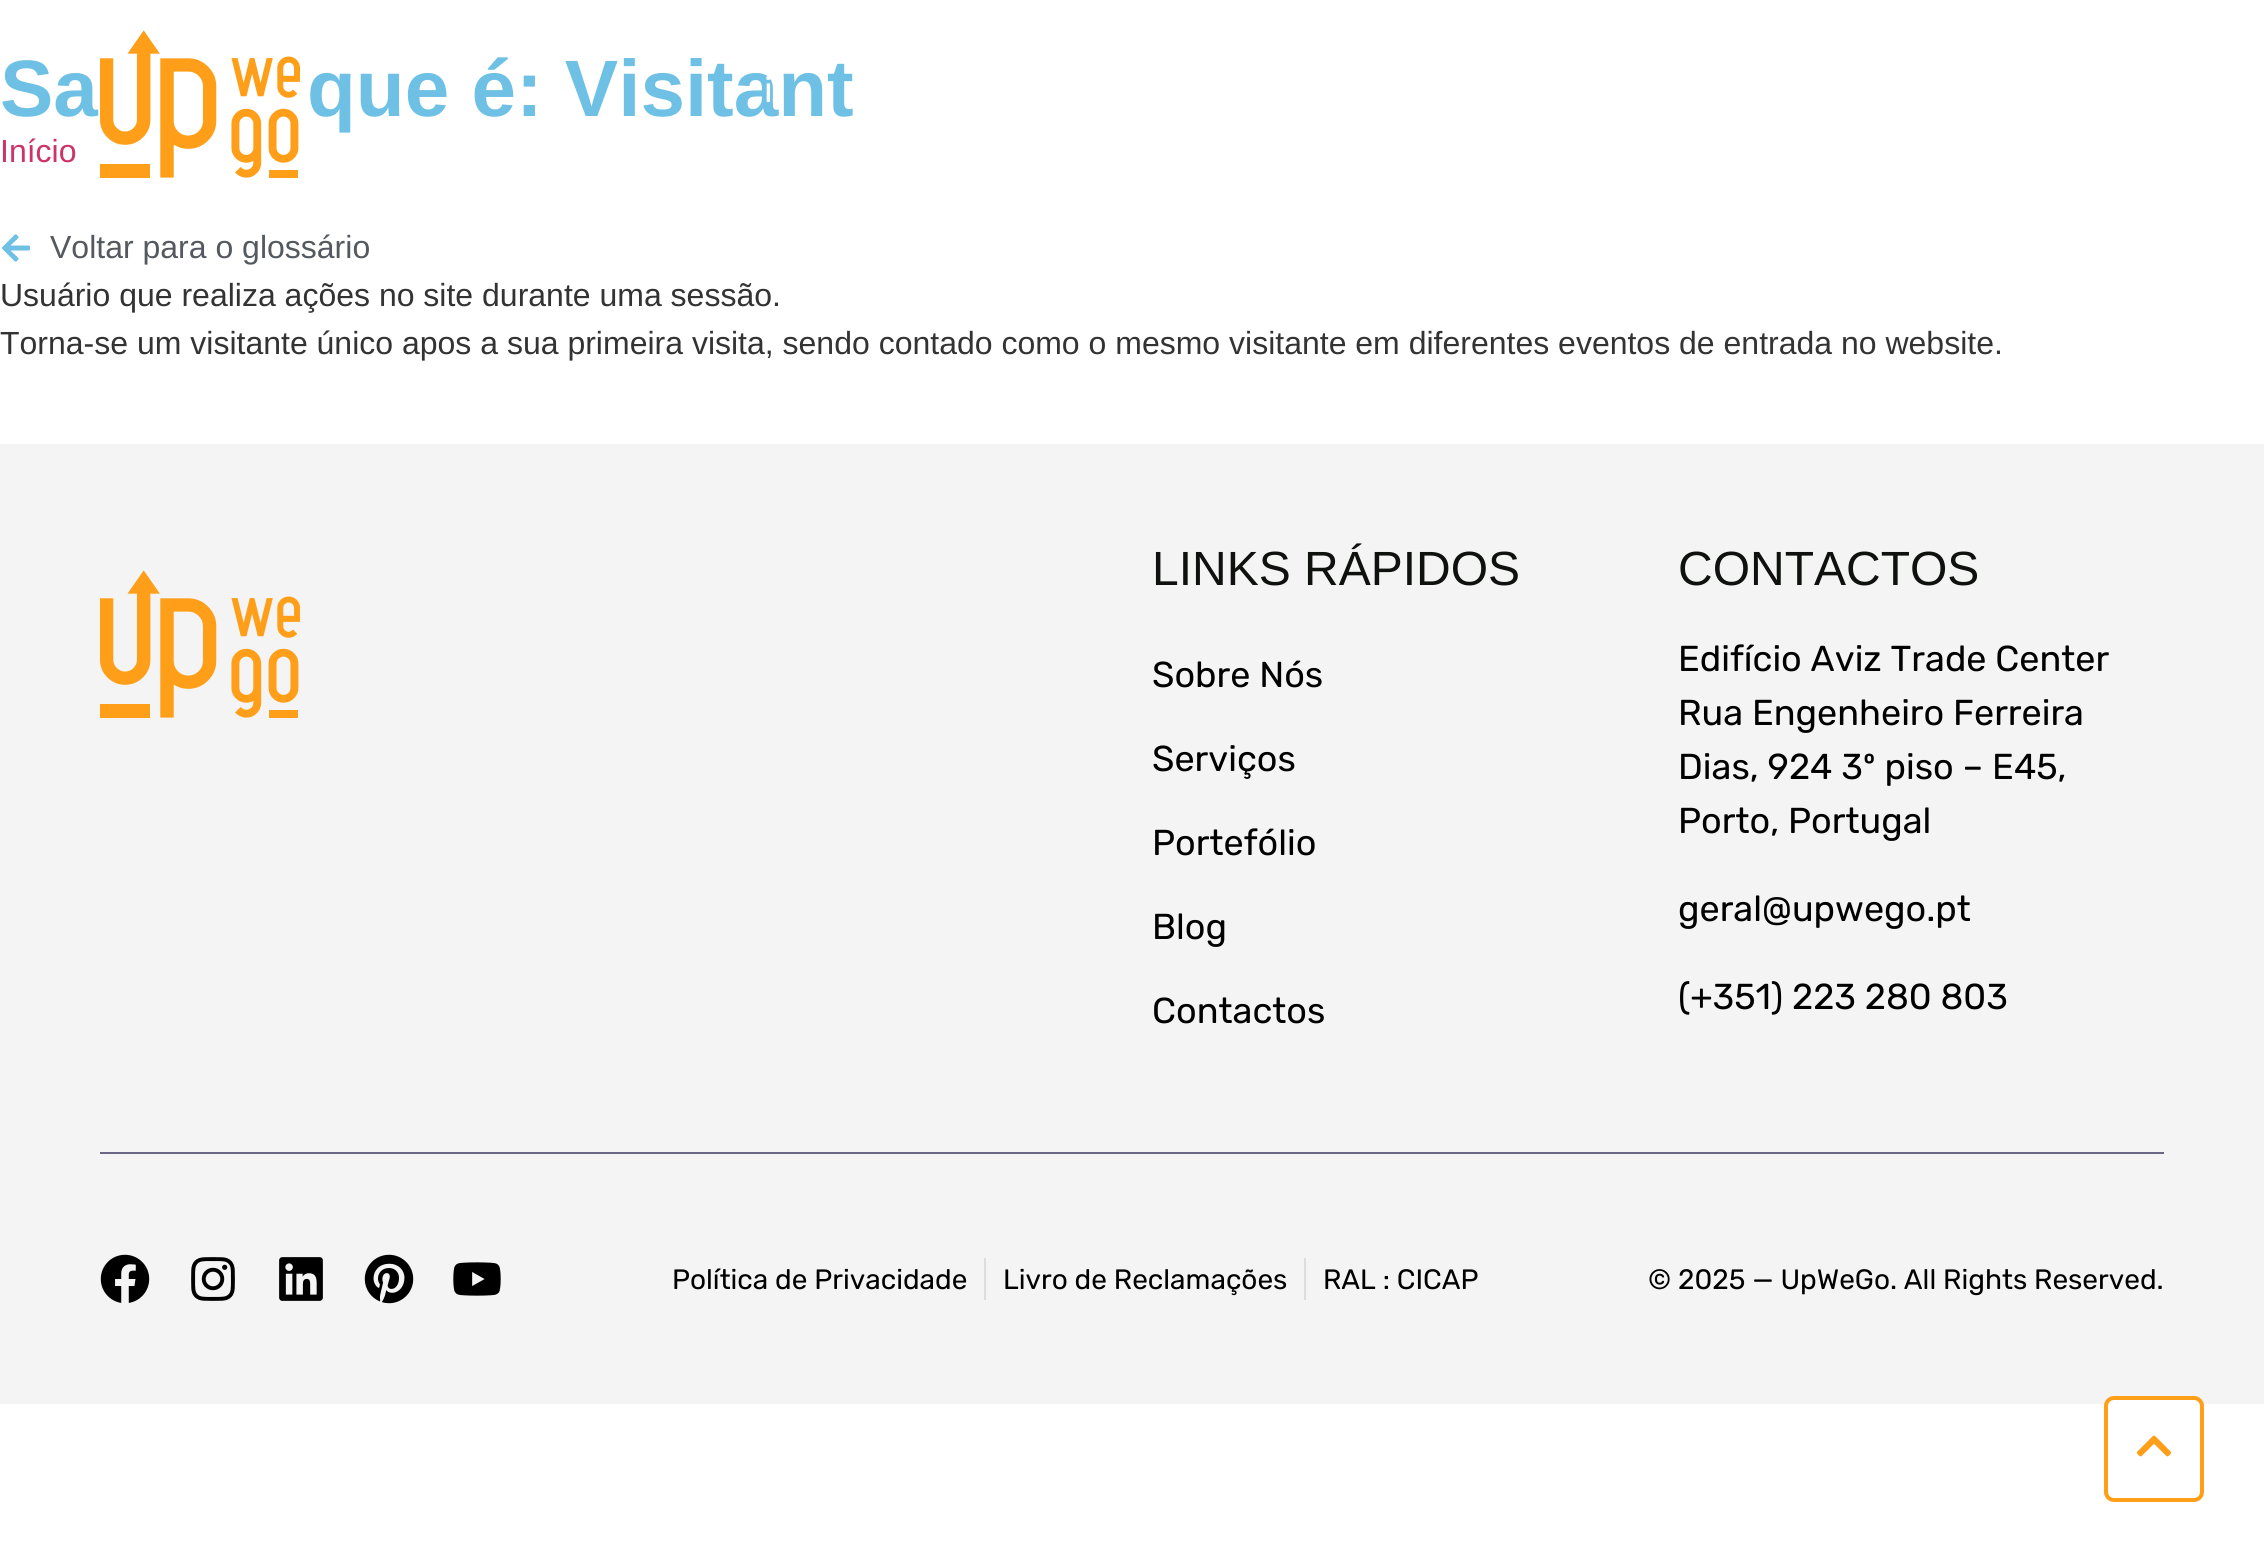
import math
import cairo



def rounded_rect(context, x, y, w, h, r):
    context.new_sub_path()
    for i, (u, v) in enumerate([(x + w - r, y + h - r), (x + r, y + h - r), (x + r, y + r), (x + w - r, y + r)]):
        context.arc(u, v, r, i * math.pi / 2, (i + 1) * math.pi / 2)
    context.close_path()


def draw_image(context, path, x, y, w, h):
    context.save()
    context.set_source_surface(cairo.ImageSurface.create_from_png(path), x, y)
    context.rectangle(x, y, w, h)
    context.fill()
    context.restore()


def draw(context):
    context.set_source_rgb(1, 1, 1)
    context.paint()
    draw_image(context, "images/1.png", 2, 234, 28, 28)
    draw_image(context, "images/2.png", 100, 30, 200, 148)
    draw_image(context, "images/3.png", 859, 85, 19, 12)
    context.set_source_rgb(244 / 255, 244 / 255, 244 / 255)
    context.rectangle(0, 444, 2264, 960)
    context.fill()
    draw_image(context, "images/4.png", 100, 570, 200, 148)
    context.set_source_rgb(105 / 255, 102 / 255, 135 / 255)
    context.rectangle(100, 1152, 2064, 2)
    context.fill()
    draw_image(context, "images/5.png", 100, 1254, 50, 49)
    draw_image(context, "images/6.png", 191, 1257, 44, 44)
    draw_image(context, "images/7.png", 279, 1257, 44, 44)
    draw_image(context, "images/8.png", 364, 1254, 50, 50)
    draw_image(context, "images/9.png", 453, 1262, 48, 34)
    context.set_source_rgb(221 / 255, 221 / 255, 221 / 255)
    context.rectangle(984, 1258, 2, 42)
    context.fill()
    context.rectangle(1304, 1258, 2, 42)
    context.fill()
    context.set_source_rgb(1, 1, 1)
    rounded_rect(context, 2106, 1398, 96, 102, 8)
    context.fill_preserve()
    context.set_source_rgb(1, 158 / 255, 24 / 255)
    context.set_line_width(4)
    context.stroke()
    draw_image(context, "images/10.png", 2137, 1435, 34, 22)
    context.select_font_face("Liberation Sans", cairo.FontSlant.NORMAL, cairo.FontWeight.BOLD)
    context.set_font_size(80)
    context.set_source_rgb(110 / 255, 193 / 255, 228 / 255)
    context.move_to(0, 116)
    context.show_text("Sa")
    context.move_to(307, 116)
    context.show_text("que é: Visitant")
    context.select_font_face("Liberation Sans")
    context.set_font_size(32)
    context.set_source_rgb(204 / 255, 51 / 255, 102 / 255)
    context.move_to(0, 162)
    context.show_text("Início")
    context.set_source_rgb(84 / 255, 89 / 255, 95 / 255)
    context.move_to(50, 258)
    context.show_text("Voltar para o glossário")
    context.set_source_rgb(51 / 255, 51 / 255, 51 / 255)
    context.move_to(0, 306)
    context.show_text("Usuário que realiza ações no site durante uma sessão.")
    context.move_to(0, 354)
    context.show_text("Torna-se um visitante único apos a sua primeira visita, sendo contado como o mesmo visitante em diferentes eventos de entrada no website.")
    context.select_font_face("Rubik")
    context.set_font_size(36)
    context.set_source_rgb(1, 1, 1)
    context.move_to(764, 102)
    context.show_text("i")
    context.select_font_face("Liberation Sans")
    context.set_font_size(48)
    context.set_source_rgb(15 / 255, 17 / 255, 15 / 255)
    context.move_to(1152, 585)
    context.show_text("LINKS RÁPIDOS")
    context.select_font_face("Rubik")
    context.set_font_size(36)
    context.set_source_rgb(0, 0, 0)
    context.move_to(1152, 687)
    context.show_text("Sobre Nós")
    context.move_to(1152, 771)
    context.show_text("Serviços")
    context.move_to(1152, 855)
    context.show_text("Portefólio")
    context.move_to(1152, 939)
    context.show_text("Blog")
    context.move_to(1152, 1023)
    context.show_text("Contactos")
    context.select_font_face("Liberation Sans")
    context.set_font_size(48)
    context.set_source_rgb(15 / 255, 17 / 255, 15 / 255)
    context.move_to(1678, 585)
    context.show_text("CONTACTOS")
    context.select_font_face("Rubik")
    context.set_font_size(36)
    context.set_source_rgb(0, 0, 0)
    context.move_to(1678, 671)
    context.show_text("Edifício Aviz Trade Center")
    context.move_to(1678, 725)
    context.show_text("Rua Engenheiro Ferreira")
    context.move_to(1678, 779)
    context.show_text("Dias, 924 3º piso – E45,")
    context.move_to(1678, 833)
    context.show_text("Porto, Portugal")
    context.move_to(1678, 921)
    context.show_text("geral@upwego.pt")
    context.move_to(1678, 1009)
    context.show_text("(+351) 223 280 803")
    context.set_font_size(28)
    context.move_to(672, 1289)
    context.show_text("Política de Privacidade")
    context.move_to(1003, 1289)
    context.show_text("Livro de Reclamações")
    context.move_to(1323, 1289)
    context.show_text("RAL : CICAP")
    context.move_to(1648, 1289)
    context.show_text("© 2025 — UpWeGo. All Rights Reserved.")


surface = cairo.ImageSurface(cairo.Format.RGB24, 2264, 1562)
context = cairo.Context(surface)
options = cairo.FontOptions()
options.set_hint_metrics(cairo.HintMetrics.OFF)
options.set_hint_style(cairo.HintStyle.NONE)
context.set_font_options(options)
context.set_miter_limit(4)
draw(context)
surface.write_to_png("out.png")
